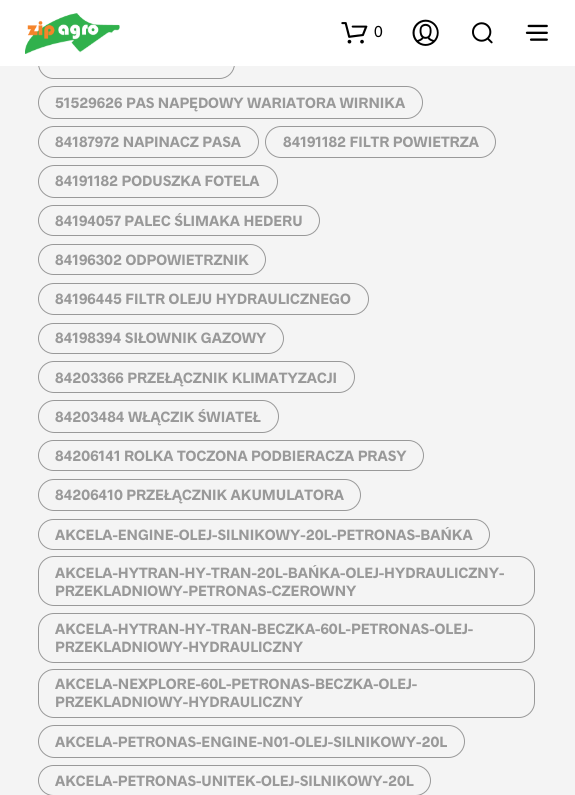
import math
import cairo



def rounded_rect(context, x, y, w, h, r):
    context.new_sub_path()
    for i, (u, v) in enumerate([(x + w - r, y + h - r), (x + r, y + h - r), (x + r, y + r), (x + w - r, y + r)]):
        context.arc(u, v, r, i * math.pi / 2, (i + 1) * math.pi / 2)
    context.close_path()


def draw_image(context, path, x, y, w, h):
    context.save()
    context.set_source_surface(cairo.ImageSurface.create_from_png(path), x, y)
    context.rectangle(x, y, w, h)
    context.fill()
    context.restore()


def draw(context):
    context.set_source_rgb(244 / 255, 244 / 255, 244 / 255)
    context.paint()
    rounded_rect(context, 38.5, 48.5, 196, 30, 15)
    context.set_source_rgb(153 / 255, 153 / 255, 153 / 255)
    context.set_line_width(1)
    context.stroke()
    context.set_source_rgb(1, 1, 1)
    context.rectangle(0, 0, 575, 66)
    context.fill()
    draw_image(context, "images/1.png", 25, 13, 95, 41)
    draw_image(context, "images/2.png", 341, 22, 27, 22)
    draw_image(context, "images/3.png", 412, 19, 27, 27)
    draw_image(context, "images/4.png", 472, 22, 21, 22)
    draw_image(context, "images/5.png", 525, 24, 23, 17)
    rounded_rect(context, 38.5, 86.5, 384, 32, 16)
    context.set_source_rgb(153 / 255, 153 / 255, 153 / 255)
    context.stroke()
    rounded_rect(context, 38.5, 126.5, 220, 31, 15.5)
    context.stroke()
    rounded_rect(context, 265.5, 126.5, 230, 31, 15.5)
    context.stroke()
    rounded_rect(context, 38.5, 165.5, 239, 32, 16)
    context.stroke()
    rounded_rect(context, 38.5, 205.5, 281, 30, 15)
    context.stroke()
    rounded_rect(context, 38.5, 244.5, 227, 30, 15)
    context.stroke()
    rounded_rect(context, 38.5, 283.5, 330, 31, 15.5)
    context.stroke()
    rounded_rect(context, 38.5, 323.5, 245, 30, 15)
    context.stroke()
    rounded_rect(context, 38.5, 361.5, 316, 31, 15.5)
    context.stroke()
    rounded_rect(context, 38.5, 400.5, 240, 32, 16)
    context.stroke()
    rounded_rect(context, 38.5, 440.5, 385, 30, 15)
    context.stroke()
    rounded_rect(context, 38.5, 479.5, 322, 31, 15.5)
    context.stroke()
    rounded_rect(context, 38.5, 519.5, 451, 30, 15)
    context.stroke()
    rounded_rect(context, 38.5, 556.5, 496, 49, 15.5)
    context.stroke()
    rounded_rect(context, 38.5, 613.5, 496, 49, 15.5)
    context.stroke()
    rounded_rect(context, 38.5, 669.5, 496, 48, 15.5)
    context.stroke()
    rounded_rect(context, 38.5, 725.5, 426, 32, 16)
    context.stroke()
    rounded_rect(context, 38.5, 765.5, 392, 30, 15)
    context.stroke()
    context.select_font_face("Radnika")
    context.set_font_size(16)
    context.set_source_rgb(0, 0, 0)
    context.move_to(374, 37)
    context.show_text("0")
    context.select_font_face("Radnika", cairo.FontSlant.NORMAL, cairo.FontWeight.BOLD)
    context.set_font_size(15)
    context.set_source_rgb(153 / 255, 153 / 255, 153 / 255)
    context.move_to(55, 108)
    context.show_text("51529626 PAS NAPĘDOWY WARIATORA WIRNIKA")
    context.move_to(55, 147)
    context.show_text("84187972 NAPINACZ PASA")
    context.move_to(283, 147)
    context.show_text("84191182 FILTR POWIETRZA")
    context.move_to(55, 186)
    context.show_text("84191182 PODUSZKA FOTELA")
    context.move_to(55, 226)
    context.show_text("84194057 PALEC ŚLIMAKA HEDERU")
    context.move_to(55, 265)
    context.show_text("84196302 ODPOWIETRZNIK")
    context.move_to(55, 304)
    context.show_text("84196445 FILTR OLEJU HYDRAULICZNEGO")
    context.move_to(55, 343)
    context.show_text("84198394 SIŁOWNIK GAZOWY")
    context.move_to(55, 383)
    context.show_text("84203366 PRZEŁĄCZNIK KLIMATYZACJI")
    context.move_to(55, 422)
    context.show_text("84203484 WŁĄCZIK ŚWIATEŁ")
    context.move_to(55, 461)
    context.show_text("84206141 ROLKA TOCZONA PODBIERACZA PRASY")
    context.move_to(55, 500)
    context.show_text("84206410 PRZEŁĄCZNIK AKUMULATORA")
    context.move_to(55, 540)
    context.show_text("AKCELA-ENGINE-OLEJ-SILNIKOWY-20L-PETRONAS-BAŃKA")
    context.move_to(55, 578)
    context.show_text("AKCELA-HYTRAN-HY-TRAN-20L-BAŃKA-OLEJ-HYDRAULICZNY-")
    context.move_to(55, 596)
    context.show_text("PRZEKLADNIOWY-PETRONAS-CZEROWNY")
    context.move_to(55, 634)
    context.show_text("AKCELA-HYTRAN-HY-TRAN-BECZKA-60L-PETRONAS-OLEJ-")
    context.move_to(55, 652)
    context.show_text("PRZEKLADNIOWY-HYDRAULICZNY")
    context.move_to(55, 689)
    context.show_text("AKCELA-NEXPLORE-60L-PETRONAS-BECZKA-OLEJ-")
    context.move_to(55, 707)
    context.show_text("PRZEKLADNIOWY-HYDRAULICZNY")
    context.move_to(55, 747)
    context.show_text("AKCELA-PETRONAS-ENGINE-N01-OLEJ-SILNIKOWY-20L")
    context.move_to(55, 786)
    context.show_text("AKCELA-PETRONAS-UNITEK-OLEJ-SILNIKOWY-20L")


surface = cairo.ImageSurface(cairo.Format.RGB24, 575, 795)
context = cairo.Context(surface)
options = cairo.FontOptions()
options.set_hint_metrics(cairo.HintMetrics.OFF)
options.set_hint_style(cairo.HintStyle.NONE)
context.set_font_options(options)
context.set_miter_limit(4)
draw(context)
surface.write_to_png("out.png")
